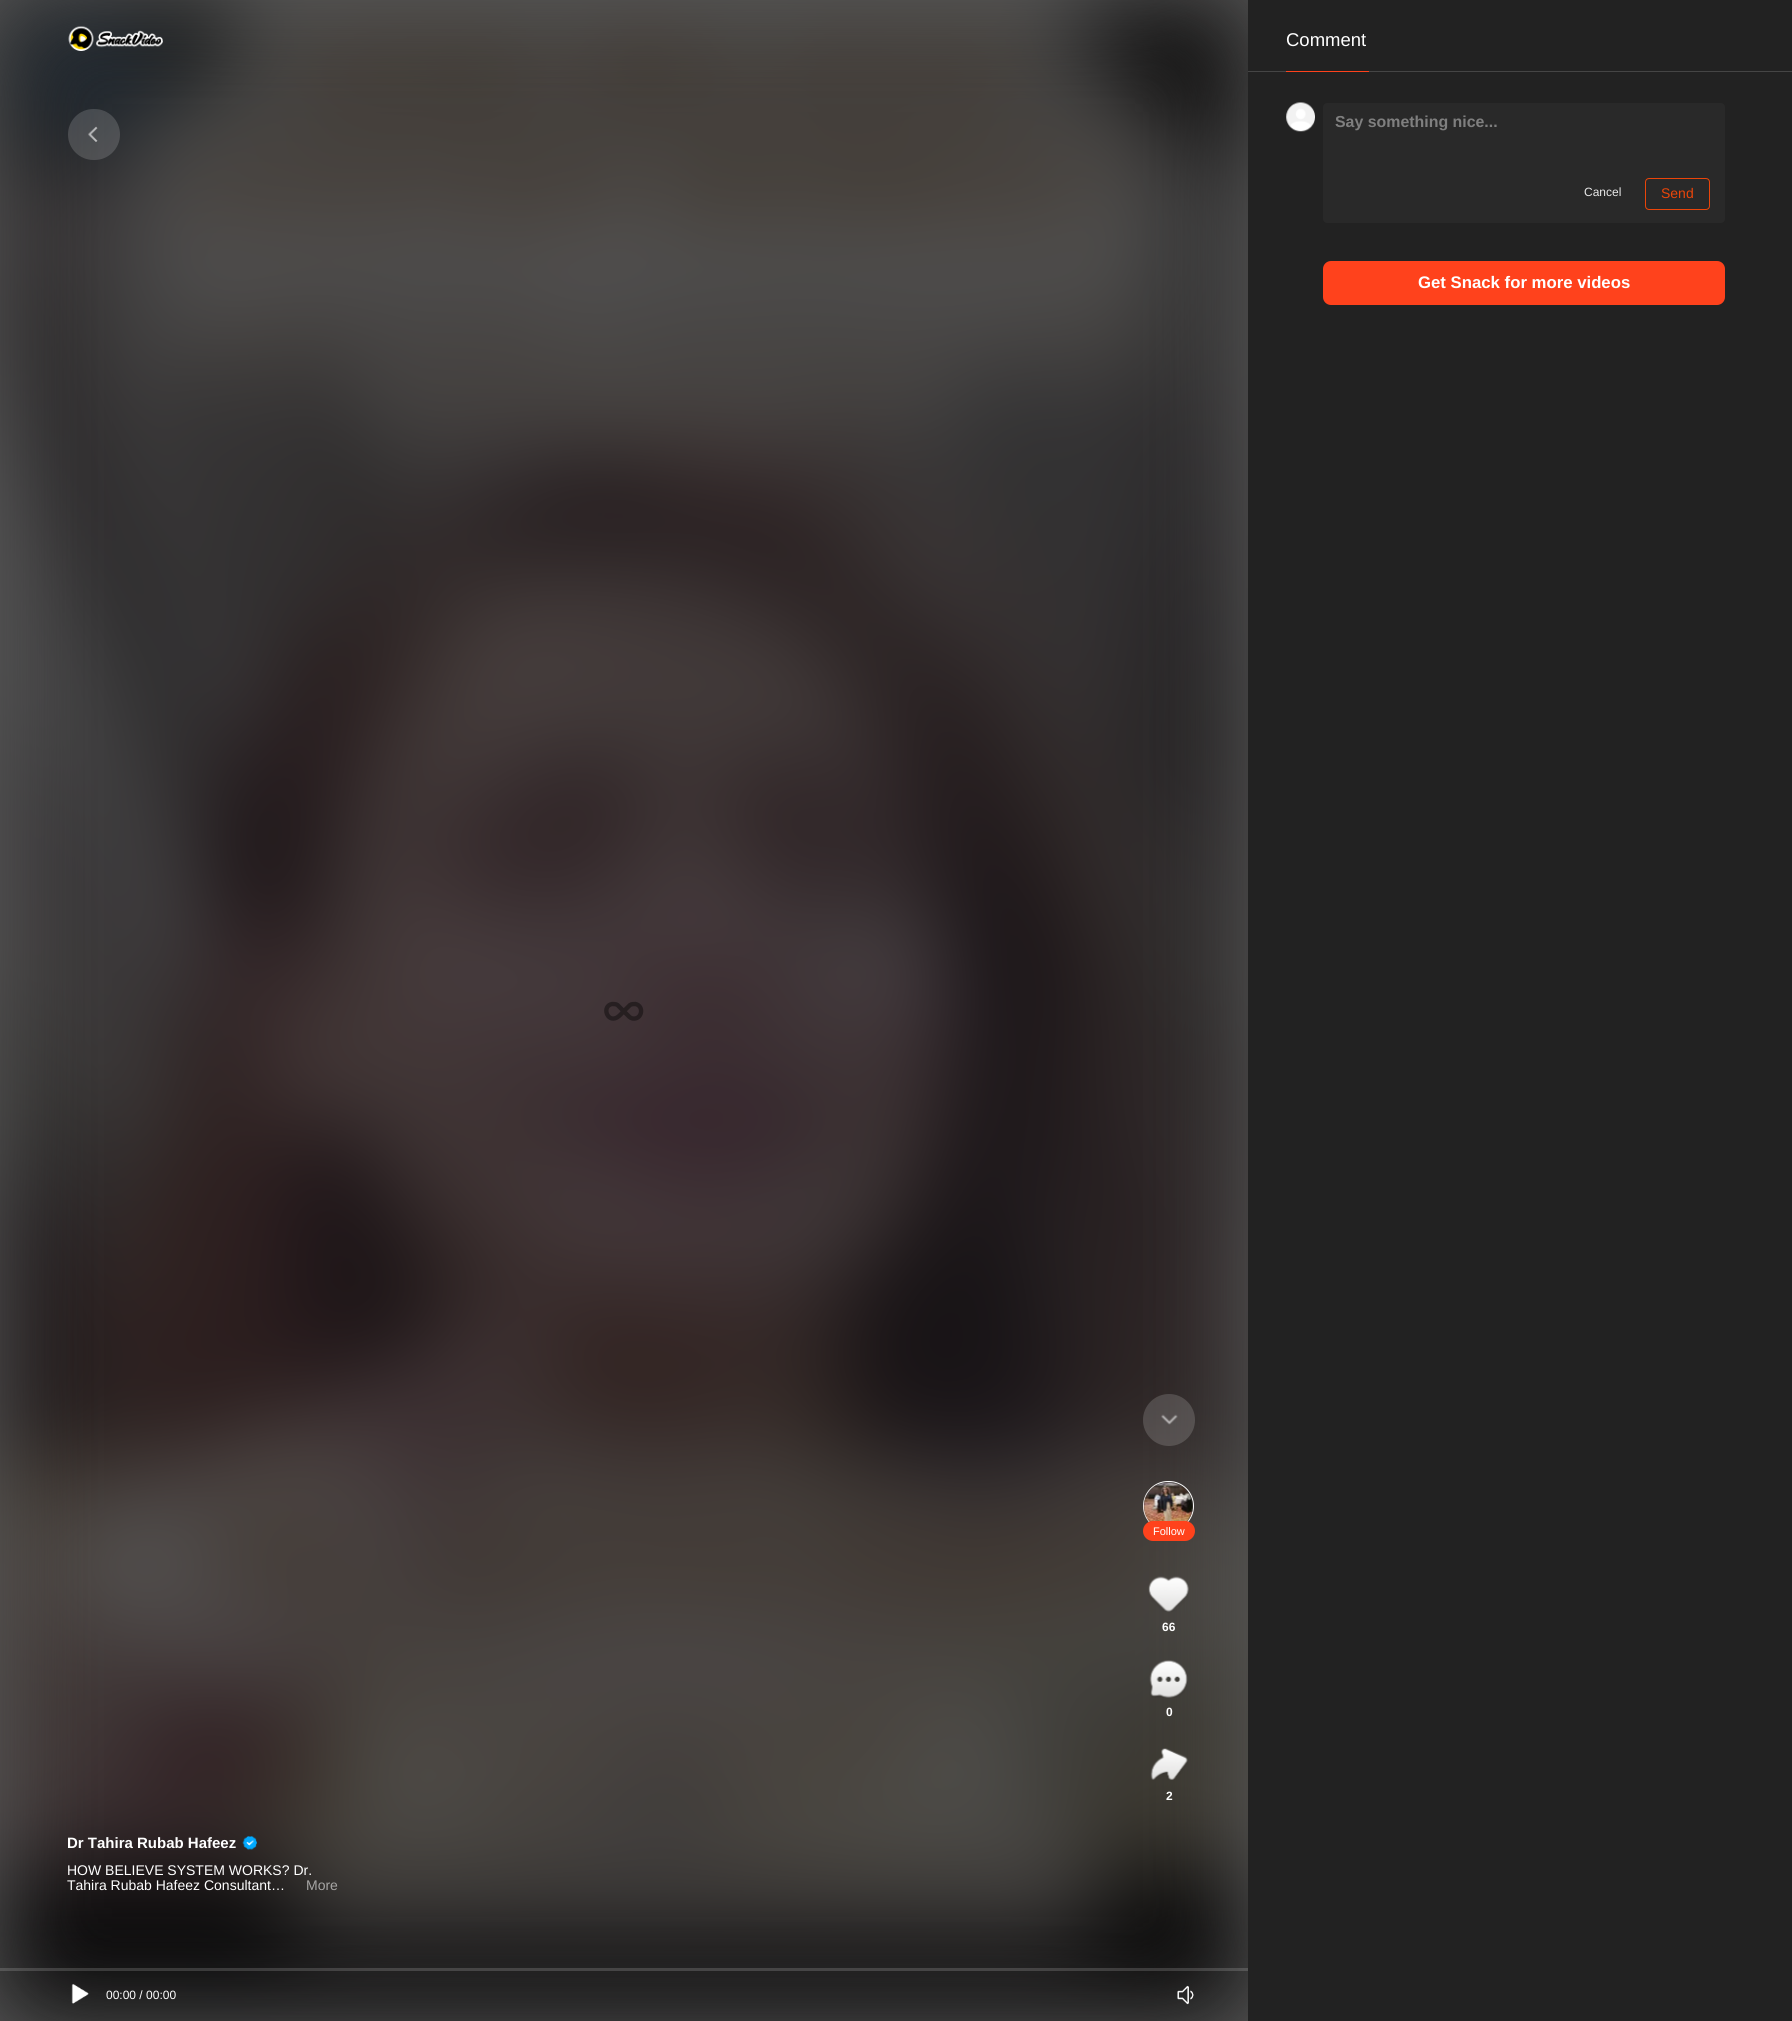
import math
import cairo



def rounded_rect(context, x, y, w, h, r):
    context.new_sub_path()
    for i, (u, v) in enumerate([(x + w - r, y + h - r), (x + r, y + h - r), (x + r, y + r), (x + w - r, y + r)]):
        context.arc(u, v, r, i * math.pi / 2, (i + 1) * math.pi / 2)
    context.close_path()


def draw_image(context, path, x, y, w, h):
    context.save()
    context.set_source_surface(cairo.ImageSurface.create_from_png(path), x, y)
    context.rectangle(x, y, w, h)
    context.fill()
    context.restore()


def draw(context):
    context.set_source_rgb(88 / 255, 88 / 255, 88 / 255)
    context.paint()
    draw_image(context, "images/3.png", 0, 0, 1248, 2021)
    draw_image(context, "images/1.png", 68, 26, 95, 25)
    context.set_source_rgb(34 / 255, 34 / 255, 34 / 255)
    context.rectangle(1248, 0, 544, 2021)
    context.fill()
    context.set_source_rgb(69 / 255, 69 / 255, 69 / 255)
    context.rectangle(1248, 71, 544, 1)
    context.fill()
    context.set_source_rgb(1, 66 / 255, 28 / 255)
    context.rectangle(1286, 71, 83, 1)
    context.fill()
    draw_image(context, "images/2.png", 1286, 102, 29, 30)
    context.set_source_rgb(41 / 255, 41 / 255, 41 / 255)
    context.new_path()
    context.move_to(1327, 103)
    context.line_to(1721, 103)
    context.curve_to(1723, 103, 1725, 105, 1725, 107)
    context.line_to(1725, 178)
    context.line_to(1323, 178)
    context.line_to(1323, 107)
    context.curve_to(1323, 105, 1325, 103, 1327, 103)
    context.close_path()
    context.fill()
    context.new_path()
    context.move_to(1323, 178)
    context.line_to(1725, 178)
    context.line_to(1725, 219)
    context.curve_to(1725, 221, 1723, 223, 1721, 223)
    context.line_to(1327, 223)
    context.curve_to(1325, 223, 1323, 221, 1323, 219)
    context.close_path()
    context.fill()
    rounded_rect(context, 1645.5, 178.5, 64, 31, 3.5)
    context.set_source_rgb(234 / 255, 69 / 255, 9 / 255)
    context.set_line_width(1)
    context.stroke()
    context.set_source_rgb(1, 66 / 255, 28 / 255)
    rounded_rect(context, 1323, 261, 402, 44, 8)
    context.fill()
    context.set_source_rgba(1, 1, 1, 0.16)
    context.arc(1169, 1420, 26, 0, 2 * math.pi)
    context.fill()
    draw_image(context, "images/4.png", 1161, 1414, 17, 11)
    rounded_rect(context, 1143.5, 1481.5, 50, 49, 24.5)
    context.set_source_rgb(1, 1, 1)
    context.stroke()
    draw_image(context, "images/5.png", 1143, 1482, 50, 40)
    context.set_source_rgb(1, 66 / 255, 28 / 255)
    rounded_rect(context, 1143, 1521, 52, 20, 10)
    context.fill()
    draw_image(context, "images/6.png", 1148, 1576, 41, 36)
    draw_image(context, "images/7.png", 1149, 1660, 39, 38)
    draw_image(context, "images/8.png", 1150, 1748, 38, 32)
    draw_image(context, "images/9.png", 242, 1836, 15, 14)
    context.new_path()
    context.move_to(624, 1011)
    context.line_to(630, 1005)
    context.curve_to(631.5, 1004, 633.5, 1004, 635.5, 1004)
    context.curve_to(644.5, 1006, 642, 1020, 632.5, 1018.5)
    context.curve_to(630, 1018, 628.5, 1016, 627, 1014.5)
    context.line_to(617.5, 1005)
    context.curve_to(616, 1004, 614, 1004, 612, 1004)
    context.curve_to(601.5, 1006, 607, 1023, 617, 1017.5)
    context.curve_to(619.5, 1016, 621.5, 1013.5, 624, 1011)
    context.set_source_rgba(0, 0, 0, 0.4)
    context.set_line_width(4.4)
    context.set_line_cap(cairo.LineCap.ROUND)
    context.stroke()
    context.set_source_rgba(1, 1, 1, 0.16)
    context.rectangle(0, 1968, 1248, 3)
    context.fill()
    draw_image(context, "images/10.png", 71, 1984, 18, 20)
    draw_image(context, "images/11.png", 1177, 1985, 17, 20)
    rounded_rect(context, 68, 109, 52, 51, 25.5)
    context.fill()
    draw_image(context, "images/12.png", 88, 126, 10, 16)
    context.select_font_face("Liberation Sans")
    context.set_font_size(18.5)
    context.set_source_rgb(1, 1, 1)
    context.move_to(1286, 46)
    context.show_text("Comment")
    context.select_font_face("Liberation Sans", cairo.FontSlant.NORMAL, cairo.FontWeight.BOLD)
    context.set_font_size(15.9)
    context.set_source_rgb(127 / 255, 127 / 255, 127 / 255)
    context.move_to(1335, 127)
    context.show_text("Say something nice...")
    context.select_font_face("Liberation Sans")
    context.set_font_size(12)
    context.set_source_rgb(232 / 255, 232 / 255, 232 / 255)
    context.move_to(1584, 196)
    context.show_text("Cancel")
    context.set_font_size(14)
    context.set_source_rgb(234 / 255, 69 / 255, 9 / 255)
    context.move_to(1661, 198)
    context.show_text("Send")
    context.select_font_face("Liberation Sans", cairo.FontSlant.NORMAL, cairo.FontWeight.BOLD)
    context.set_font_size(16.75)
    context.set_source_rgb(1, 1, 1)
    context.move_to(1418, 288)
    context.show_text("Get Snack for more videos")
    context.select_font_face("Liberation Sans")
    context.set_font_size(11)
    context.move_to(1153, 1535)
    context.show_text("Follow")
    context.select_font_face("Liberation Sans", cairo.FontSlant.NORMAL, cairo.FontWeight.BOLD)
    context.set_font_size(12)
    context.move_to(1162, 1631)
    context.show_text("66")
    context.move_to(1166, 1716)
    context.show_text("0")
    context.move_to(1166, 1800)
    context.show_text("2")
    context.set_font_size(15)
    context.move_to(67, 1848)
    context.show_text("Dr Tahira Rubab Hafeez")
    context.select_font_face("Liberation Sans")
    context.set_font_size(14)
    context.move_to(67, 1875)
    context.show_text("HOW BELIEVE SYSTEM WORKS? Dr.")
    context.move_to(67, 1890)
    context.show_text("Tahira Rubab Hafeez Consultant…")
    context.set_source_rgb(166 / 255, 165 / 255, 164 / 255)
    context.move_to(306, 1890)
    context.show_text("More")
    context.set_font_size(12)
    context.set_source_rgb(1, 1, 1)
    context.move_to(106, 1999)
    context.show_text("00:00 / 00:00")


surface = cairo.ImageSurface(cairo.Format.RGB24, 1792, 2021)
context = cairo.Context(surface)
options = cairo.FontOptions()
options.set_hint_metrics(cairo.HintMetrics.OFF)
options.set_hint_style(cairo.HintStyle.NONE)
context.set_font_options(options)
context.set_miter_limit(4)
draw(context)
surface.write_to_png("out.png")
